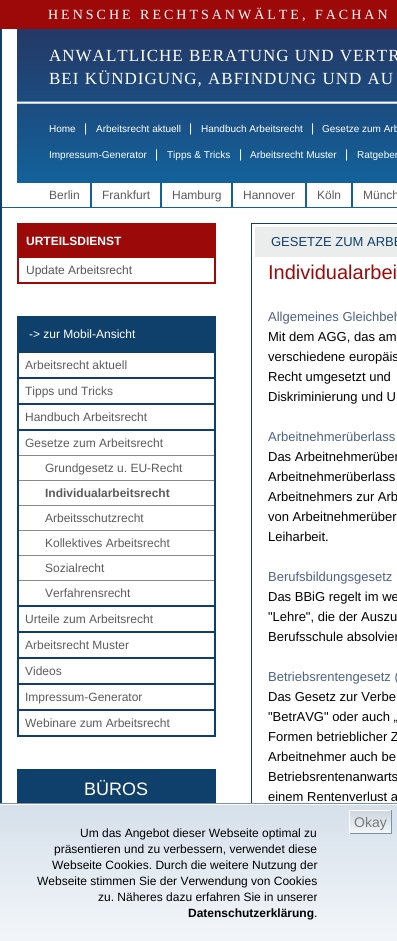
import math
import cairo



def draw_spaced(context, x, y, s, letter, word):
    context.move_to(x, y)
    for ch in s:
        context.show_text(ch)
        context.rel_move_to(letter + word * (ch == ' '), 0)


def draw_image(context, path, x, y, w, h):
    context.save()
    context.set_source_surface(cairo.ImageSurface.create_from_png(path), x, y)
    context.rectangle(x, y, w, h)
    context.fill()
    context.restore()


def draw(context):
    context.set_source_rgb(157 / 255, 9 / 255, 9 / 255)
    context.paint()
    context.set_source_rgb(1, 1, 1)
    context.rectangle(2, 29, 395, 774)
    context.fill()
    context.set_source_rgb(15 / 255, 64 / 255, 107 / 255)
    context.rectangle(0, 29, 2, 774)
    context.fill()
    draw_image(context, "images/1.png", 17, 29, 380, 154)
    context.set_source_rgb(19 / 255, 97 / 255, 154 / 255)
    context.rectangle(2, 207, 395, 1)
    context.fill()
    context.rectangle(90, 183, 2, 24)
    context.fill()
    context.rectangle(160, 183, 2, 24)
    context.fill()
    context.rectangle(231, 183, 2, 24)
    context.fill()
    context.rectangle(305, 183, 2, 24)
    context.fill()
    context.rectangle(351, 183, 2, 24)
    context.fill()
    context.rectangle(18, 224, 197, 59)
    context.set_source_rgb(156 / 255, 9 / 255, 9 / 255)
    context.stroke()
    context.rectangle(19, 225, 195, 33)
    context.fill()
    context.set_source_rgb(15 / 255, 64 / 255, 107 / 255)
    context.rectangle(17, 316, 199, 2)
    context.fill()
    context.rectangle(214, 316, 2, 421)
    context.fill()
    context.rectangle(17, 316, 2, 421)
    context.fill()
    context.rectangle(19, 318, 195, 35)
    context.fill()
    context.rectangle(19, 377, 195, 2)
    context.fill()
    context.rectangle(19, 403, 195, 2)
    context.fill()
    context.rectangle(19, 429, 195, 2)
    context.fill()
    context.rectangle(19, 605, 195, 2)
    context.fill()
    context.set_source_rgb(137 / 255, 137 / 255, 137 / 255)
    context.rectangle(19, 455, 195, 1)
    context.fill()
    context.rectangle(19, 480, 195, 1)
    context.fill()
    context.rectangle(19, 505, 195, 1)
    context.fill()
    context.rectangle(19, 530, 195, 1)
    context.fill()
    context.rectangle(19, 555, 195, 1)
    context.fill()
    context.rectangle(19, 580, 195, 1)
    context.fill()
    context.set_source_rgb(15 / 255, 64 / 255, 107 / 255)
    context.rectangle(19, 631, 195, 2)
    context.fill()
    context.rectangle(19, 657, 195, 2)
    context.fill()
    context.rectangle(19, 683, 195, 2)
    context.fill()
    context.rectangle(19, 709, 195, 2)
    context.fill()
    context.rectangle(19, 735, 195, 2)
    context.fill()
    context.rectangle(18, 770, 197, 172)
    context.stroke()
    context.rectangle(19, 771, 195, 32)
    context.fill()
    context.rectangle(251.5, 223.5, 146, 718)
    context.set_line_width(1)
    context.stroke()
    context.set_source_rgb(235 / 255, 236 / 255, 236 / 255)
    context.rectangle(255, 227, 142, 30)
    context.fill()
    gradient = cairo.LinearGradient(199, 805, 199, 941)
    gradient.add_color_stop_rgba(0, 214 / 255, 224 / 255, 235 / 255, 1)
    gradient.add_color_stop_rgba(1, 242 / 255, 246 / 255, 249 / 255, 1)
    context.set_source(gradient)
    context.rectangle(0, 805, 397, 136)
    context.fill()
    context.set_source_rgb(1, 1, 1)
    context.rectangle(0, 804, 397, 1)
    context.fill()
    context.rectangle(-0.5, 803.5, 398, 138)
    context.set_source_rgb(123 / 255, 146 / 255, 169 / 255)
    context.stroke()
    gradient = cairo.LinearGradient(350, 811, 350, 833)
    gradient.add_color_stop_rgba(0, 206 / 255, 214 / 255, 223 / 255, 1)
    gradient.add_color_stop_rgba(1, 242 / 255, 246 / 255, 249 / 255, 1)
    context.set_source(gradient)
    context.rectangle(350, 811, 41, 22)
    context.fill()
    context.set_source_rgb(1, 1, 1)
    context.rectangle(349, 810, 43, 1)
    context.fill()
    context.set_source_rgb(123 / 255, 146 / 255, 169 / 255)
    context.rectangle(391, 810, 1, 24)
    context.fill()
    context.rectangle(349, 833, 43, 1)
    context.fill()
    context.set_source_rgb(1, 1, 1)
    context.rectangle(349, 810, 1, 24)
    context.fill()
    context.select_font_face("Liberation Serif")
    context.set_font_size(14)
    draw_spaced(context, 48, 19, "HENSCHE RECHTSANWÄLTE, FACHAN", 3, 0)
    context.set_font_size(17)
    draw_spaced(context, 49, 61, "ANWALTLICHE BERATUNG UND VERTR", 1, 0)
    draw_spaced(context, 49, 84, "BEI KÜNDIGUNG, ABFINDUNG UND AU", 1, 0)
    context.select_font_face("Liberation Sans")
    context.set_font_size(10)
    context.move_to(49, 132)
    context.show_text("Home")
    context.set_font_size(12)
    context.move_to(84, 132)
    context.show_text("|")
    context.set_font_size(10)
    context.move_to(96, 132)
    context.show_text("Arbeitsrecht aktuell")
    context.set_font_size(12)
    context.move_to(189, 132)
    context.show_text("|")
    context.set_font_size(10)
    context.move_to(201, 132)
    context.show_text("Handbuch Arbeitsrecht")
    context.set_font_size(12)
    context.move_to(311, 132)
    context.show_text("|")
    context.set_font_size(10)
    context.move_to(322, 132)
    context.show_text("Gesetze zum Arb")
    context.move_to(49, 158)
    context.show_text("Impressum-Generator")
    context.set_font_size(12)
    context.move_to(155, 158)
    context.show_text("|")
    context.set_font_size(10)
    context.move_to(167, 158)
    context.show_text("Tipps & Tricks")
    context.set_font_size(12)
    context.move_to(239, 158)
    context.show_text("|")
    context.set_font_size(10)
    context.move_to(250, 158)
    context.show_text("Arbeitsrecht Muster")
    context.set_font_size(12)
    context.move_to(345, 158)
    context.show_text("|")
    context.set_font_size(10)
    context.move_to(357, 158)
    context.show_text("Ratgeber")
    context.set_font_size(12)
    context.set_source_rgb(91 / 255, 91 / 255, 91 / 255)
    context.move_to(49, 199)
    context.show_text("Berlin")
    context.move_to(102, 199)
    context.show_text("Frankfurt")
    context.move_to(172, 199)
    context.show_text("Hamburg")
    context.move_to(243, 199)
    context.show_text("Hannover")
    context.move_to(317, 199)
    context.show_text("Köln")
    context.move_to(363, 199)
    context.show_text("Münch")
    context.select_font_face("Liberation Sans", cairo.FontSlant.NORMAL, cairo.FontWeight.BOLD)
    context.set_source_rgb(1, 1, 1)
    context.move_to(26, 245)
    context.show_text("URTEILSDIENST")
    context.select_font_face("Liberation Sans")
    context.set_source_rgb(86 / 255, 86 / 255, 85 / 255)
    context.move_to(26, 274)
    context.show_text("Update Arbeitsrecht")
    context.set_source_rgb(1, 1, 1)
    context.move_to(29, 338)
    context.show_text("-> zur Mobil-Ansicht")
    context.set_source_rgb(91 / 255, 91 / 255, 91 / 255)
    context.move_to(25, 369)
    context.show_text("Arbeitsrecht aktuell")
    context.move_to(25, 395)
    context.show_text("Tipps und Tricks")
    context.move_to(25, 421)
    context.show_text("Handbuch Arbeitsrecht")
    context.move_to(25, 447)
    context.show_text("Gesetze zum Arbeitsrecht")
    context.move_to(45, 472)
    context.show_text("Grundgesetz u. EU-Recht")
    context.select_font_face("Liberation Sans", cairo.FontSlant.NORMAL, cairo.FontWeight.BOLD)
    context.move_to(45, 497)
    context.show_text("Individualarbeitsrecht")
    context.select_font_face("Liberation Sans")
    context.move_to(45, 522)
    context.show_text("Arbeitsschutzrecht")
    context.move_to(45, 547)
    context.show_text("Kollektives Arbeitsrecht")
    context.move_to(45, 572)
    context.show_text("Sozialrecht")
    context.move_to(45, 597)
    context.show_text("Verfahrensrecht")
    context.move_to(25, 623)
    context.show_text("Urteile zum Arbeitsrecht")
    context.move_to(25, 649)
    context.show_text("Arbeitsrecht Muster")
    context.move_to(25, 675)
    context.show_text("Videos")
    context.move_to(25, 701)
    context.show_text("Impressum-Generator")
    context.move_to(25, 727)
    context.show_text("Webinare zum Arbeitsrecht")
    context.set_font_size(18)
    context.set_source_rgb(1, 1, 1)
    context.move_to(84, 795)
    context.show_text("BÜROS")
    context.set_font_size(13)
    context.set_source_rgb(15 / 255, 64 / 255, 107 / 255)
    context.move_to(271, 246)
    context.show_text("GESETZE ZUM ARBE")
    context.set_font_size(20)
    context.set_source_rgb(156 / 255, 9 / 255, 9 / 255)
    context.move_to(268, 279)
    context.show_text("Individualarbei")
    context.set_font_size(13)
    context.set_source_rgb(75 / 255, 97 / 255, 134 / 255)
    context.move_to(268, 321)
    context.show_text("Allgemeines Gleichbeh")
    context.set_source_rgb(0, 0, 0)
    context.move_to(268, 341)
    context.show_text("Mit dem AGG, das am")
    context.move_to(268, 361)
    context.show_text("verschiedene europäis")
    context.move_to(268, 381)
    context.show_text("Recht umgesetzt und")
    context.move_to(268, 401)
    context.show_text("Diskriminierung und U")
    context.set_source_rgb(75 / 255, 97 / 255, 134 / 255)
    context.move_to(268, 441)
    context.show_text("Arbeitnehmerüberlass")
    context.set_source_rgb(0, 0, 0)
    context.move_to(268, 461)
    context.show_text("Das Arbeitnehmerüber")
    context.move_to(268, 481)
    context.show_text("Arbeitnehmerüberlass")
    context.move_to(268, 501)
    context.show_text("Arbeitnehmers zur Arb")
    context.move_to(268, 521)
    context.show_text("von Arbeitnehmerüber")
    context.move_to(268, 541)
    context.show_text("Leiharbeit.")
    context.set_source_rgb(75 / 255, 97 / 255, 134 / 255)
    context.move_to(268, 581)
    context.show_text("Berufsbildungsgesetz")
    context.set_source_rgb(0, 0, 0)
    context.move_to(268, 601)
    context.show_text("Das BBiG regelt im we")
    context.move_to(268, 621)
    context.show_text("\"Lehre\", die der Auszu")
    context.move_to(268, 641)
    context.show_text("Berufsschule absolvier")
    context.set_source_rgb(75 / 255, 97 / 255, 134 / 255)
    context.move_to(268, 681)
    context.show_text("Betriebsrentengesetz (")
    context.set_source_rgb(0, 0, 0)
    context.move_to(268, 701)
    context.show_text("Das Gesetz zur Verbe")
    context.move_to(268, 721)
    context.show_text("\"BetrAVG\" oder auch „")
    context.move_to(268, 741)
    context.show_text("Formen betrieblicher Z")
    context.move_to(268, 761)
    context.show_text("Arbeitnehmer auch be")
    context.move_to(268, 781)
    context.show_text("Betriebsrentenanwarts")
    context.move_to(268, 801)
    context.show_text("einem Rentenverlust a")
    context.set_font_size(14)
    context.set_source_rgb(119 / 255, 119 / 255, 119 / 255)
    context.move_to(354, 827)
    context.show_text("Okay")
    context.set_font_size(12)
    context.set_source_rgb(0, 0, 0)
    context.move_to(80, 837)
    context.show_text("Um das Angebot dieser Webseite optimal zu")
    context.move_to(54, 853)
    context.show_text("präsentieren und zu verbessern, verwendet diese")
    context.move_to(52, 869)
    context.show_text("Webseite Cookies. Durch die weitere Nutzung der")
    context.move_to(37, 885)
    context.show_text("Webseite stimmen Sie der Verwendung von Cookies")
    context.move_to(98, 901)
    context.show_text("zu. Näheres dazu erfahren Sie in unserer")
    context.select_font_face("Liberation Sans", cairo.FontSlant.NORMAL, cairo.FontWeight.BOLD)
    context.move_to(188, 917)
    context.show_text("Datenschutzerklärung")
    context.select_font_face("Liberation Sans")
    context.move_to(314, 917)
    context.show_text(".")


surface = cairo.ImageSurface(cairo.Format.RGB24, 397, 941)
context = cairo.Context(surface)
options = cairo.FontOptions()
options.set_hint_metrics(cairo.HintMetrics.OFF)
options.set_hint_style(cairo.HintStyle.NONE)
context.set_font_options(options)
context.set_miter_limit(4)
draw(context)
surface.write_to_png("out.png")
